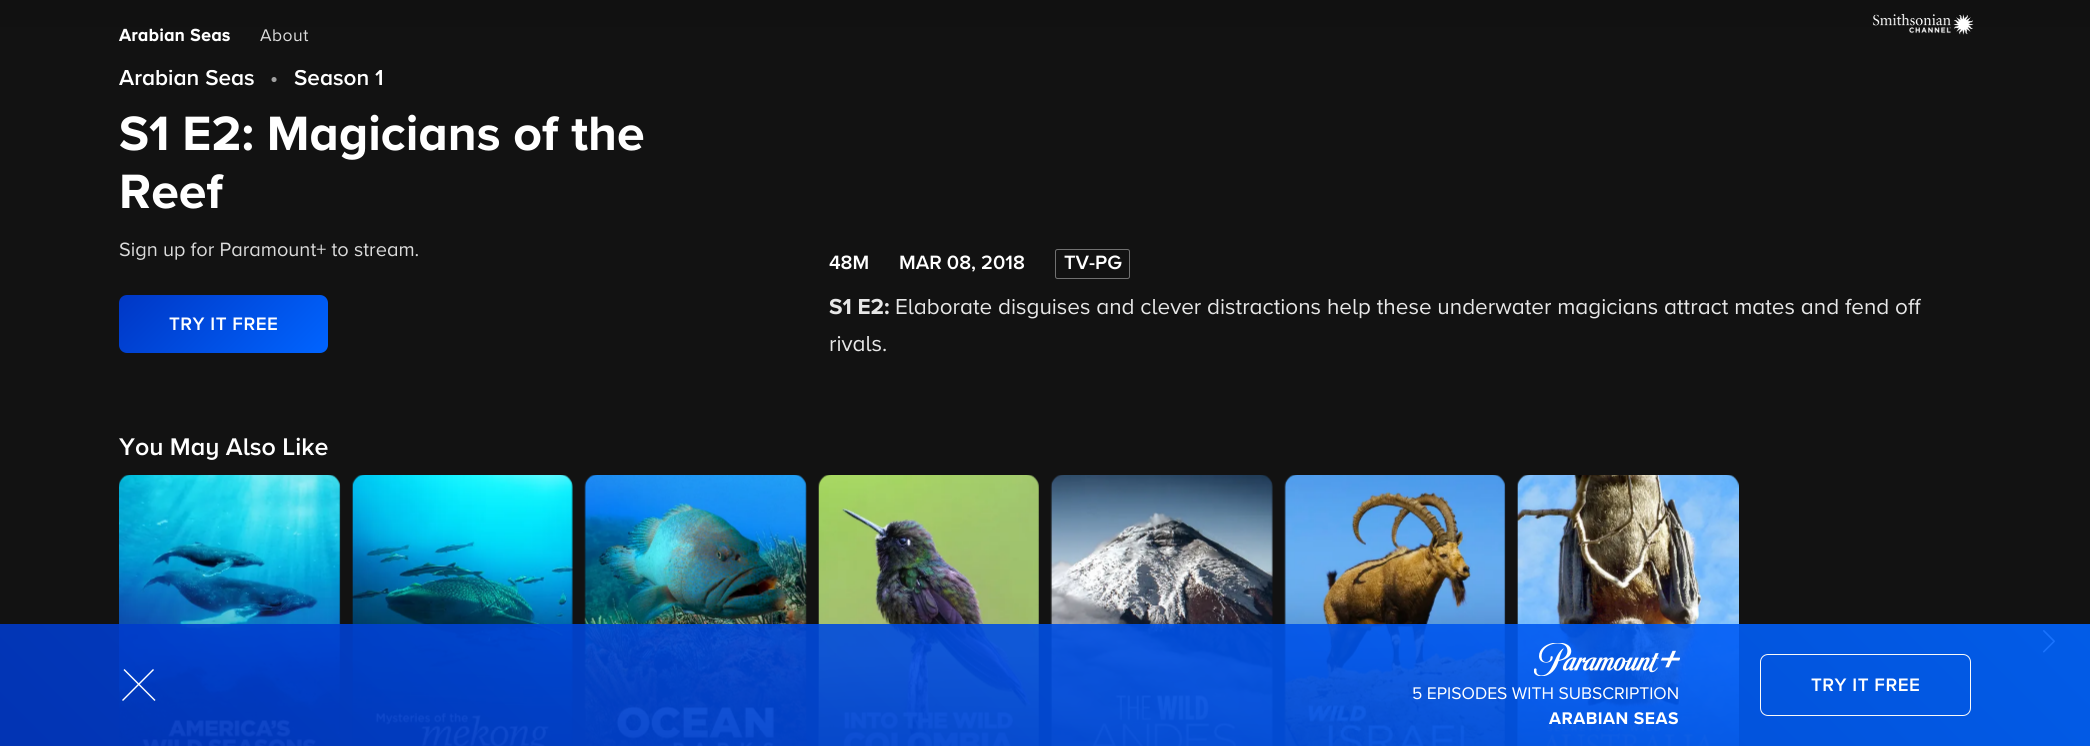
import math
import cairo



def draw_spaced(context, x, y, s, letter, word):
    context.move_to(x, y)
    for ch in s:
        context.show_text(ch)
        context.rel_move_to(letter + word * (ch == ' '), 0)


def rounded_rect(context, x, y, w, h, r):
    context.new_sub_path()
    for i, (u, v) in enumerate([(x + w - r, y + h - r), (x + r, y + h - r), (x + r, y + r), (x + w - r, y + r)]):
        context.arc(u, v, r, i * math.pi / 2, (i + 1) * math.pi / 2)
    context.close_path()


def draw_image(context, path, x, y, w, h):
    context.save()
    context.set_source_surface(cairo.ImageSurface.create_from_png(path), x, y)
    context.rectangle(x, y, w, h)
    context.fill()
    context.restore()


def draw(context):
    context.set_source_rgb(18 / 255, 18 / 255, 18 / 255)
    context.paint()
    gradient = cairo.LinearGradient(1045, -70, 1045, 55)
    gradient.add_color_stop_rgba(0, 7 / 255, 7 / 255, 7 / 255, 1)
    gradient.add_color_stop_rgba(1, 18 / 255, 18 / 255, 18 / 255, 1)
    context.set_source(gradient)
    context.rectangle(0, 0, 2090, 27)
    context.fill()
    gradient = cairo.LinearGradient(157, 257, 290, 390)
    gradient.add_color_stop_rgba(0, 0, 55 / 255, 197 / 255, 1)
    gradient.add_color_stop_rgba(1, 0, 100 / 255, 1, 1)
    context.set_source(gradient)
    rounded_rect(context, 119, 295, 209, 58, 8)
    context.fill()
    rounded_rect(context, 1055.5, 249.5, 74, 29, 2)
    context.set_source_rgb(113 / 255, 113 / 255, 113 / 255)
    context.set_line_width(1)
    context.stroke()
    draw_image(context, "images/2.png", 119, 475, 222, 271)
    gradient = cairo.LinearGradient(229, 488, 229, 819)
    gradient.add_color_stop_rgba(0.5, 18 / 255, 18 / 255, 18 / 255, 0)
    gradient.add_color_stop_rgba(1, 18 / 255, 18 / 255, 18 / 255, 1)
    context.set_source(gradient)
    context.rectangle(119, 657, 221, 89)
    context.fill()
    draw_image(context, "images/3.png", 352, 475, 221, 271)
    gradient = cairo.LinearGradient(463, 488, 463, 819)
    gradient.add_color_stop_rgba(0.5, 18 / 255, 18 / 255, 18 / 255, 0)
    gradient.add_color_stop_rgba(1, 18 / 255, 18 / 255, 18 / 255, 1)
    context.set_source(gradient)
    context.rectangle(353, 657, 220, 89)
    context.fill()
    draw_image(context, "images/4.png", 584, 475, 223, 271)
    gradient = cairo.LinearGradient(696, 488, 696, 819)
    gradient.add_color_stop_rgba(0.5, 18 / 255, 18 / 255, 18 / 255, 0)
    gradient.add_color_stop_rgba(1, 18 / 255, 18 / 255, 18 / 255, 1)
    context.set_source(gradient)
    context.rectangle(585, 657, 221, 89)
    context.fill()
    draw_image(context, "images/5.png", 818, 475, 221, 271)
    gradient = cairo.LinearGradient(929, 488, 929, 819)
    gradient.add_color_stop_rgba(0.5, 18 / 255, 18 / 255, 18 / 255, 0)
    gradient.add_color_stop_rgba(1, 18 / 255, 18 / 255, 18 / 255, 1)
    context.set_source(gradient)
    context.rectangle(819, 657, 220, 89)
    context.fill()
    draw_image(context, "images/6.png", 1050, 475, 223, 271)
    gradient = cairo.LinearGradient(1162, 488, 1162, 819)
    gradient.add_color_stop_rgba(0.5, 18 / 255, 18 / 255, 18 / 255, 0)
    gradient.add_color_stop_rgba(1, 18 / 255, 18 / 255, 18 / 255, 1)
    context.set_source(gradient)
    context.rectangle(1051, 657, 222, 89)
    context.fill()
    draw_image(context, "images/7.png", 1284, 475, 222, 271)
    gradient = cairo.LinearGradient(1395, 488, 1395, 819)
    gradient.add_color_stop_rgba(0.5, 18 / 255, 18 / 255, 18 / 255, 0)
    gradient.add_color_stop_rgba(1, 18 / 255, 18 / 255, 18 / 255, 1)
    context.set_source(gradient)
    context.rectangle(1285, 657, 220, 89)
    context.fill()
    draw_image(context, "images/8.png", 1517, 475, 222, 271)
    draw_image(context, "images/9.png", 2043, 630, 12, 23)
    gradient = cairo.LinearGradient(492, 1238, 1598, 132)
    gradient.add_color_stop_rgba(0, 0, 55 / 255, 197 / 255, 0.9)
    gradient.add_color_stop_rgba(1, 0, 100 / 255, 1, 0.9)
    context.set_source(gradient)
    context.rectangle(0, 624, 2090, 122)
    context.fill()
    context.set_source_rgb(1, 1, 1)
    context.new_path()
    context.move_to(153, 669)
    context.line_to(154, 670)
    context.line_to(123, 701)
    context.line_to(122, 700)
    context.close_path()
    context.fill()
    context.new_path()
    context.move_to(123.5, 670)
    context.line_to(124.5, 669)
    context.line_to(155.5, 700)
    context.line_to(154.5, 701)
    context.close_path()
    context.fill()
    rounded_rect(context, 1760.5, 654.5, 210, 61, 7.5)
    context.set_source_rgb(250 / 255, 250 / 255, 250 / 255)
    context.stroke()
    draw_image(context, "images/10.png", 1534, 643, 146, 33)
    context.select_font_face("Proxima Nova")
    context.set_font_size(22.5)
    context.set_source_rgb(1, 1, 1)
    context.move_to(119, 85)
    context.show_text("Arabian Seas")
    context.set_source_rgb(160 / 255, 160 / 255, 160 / 255)
    context.move_to(270, 85)
    context.show_text("•")
    context.set_source_rgb(1, 1, 1)
    context.move_to(294, 85)
    context.show_text("Season 1")
    context.set_source_rgba(18 / 255, 18 / 255, 18 / 255, 0.8)
    context.rectangle(0, 0, 2090, 70)
    context.fill()
    draw_image(context, "images/1.png", 1872, 13, 102, 22)
    context.select_font_face("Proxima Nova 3")
    context.set_font_size(17.5)
    context.set_source_rgb(219 / 255, 219 / 255, 219 / 255)
    draw_spaced(context, 260, 41, "About", 0.5, 0)
    context.select_font_face("Proxima Nova", cairo.FontSlant.NORMAL, cairo.FontWeight.BOLD)
    context.set_source_rgb(1, 1, 1)
    draw_spaced(context, 119, 41, "Arabian Seas", 0.5, 0)
    context.select_font_face("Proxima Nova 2")
    context.set_font_size(50)
    context.move_to(119, 150)
    context.show_text("S1 E2: Magicians of the")
    context.move_to(119, 208)
    context.show_text("Reef")
    context.select_font_face("Proxima Nova 3")
    context.set_font_size(20)
    context.set_source_rgb(219 / 255, 219 / 255, 219 / 255)
    context.move_to(119, 256)
    context.show_text("Sign up for Paramount+ to stream.")
    context.select_font_face("Proxima Nova")
    context.set_font_size(18.75)
    context.set_source_rgb(1, 1, 1)
    draw_spaced(context, 169, 330, "TRY IT FREE", 0.5, 0)
    context.set_font_size(20)
    context.move_to(829, 269)
    context.show_text("48M")
    context.move_to(899, 269)
    context.show_text("MAR 08, 2018")
    context.move_to(1064, 269)
    context.show_text("TV-PG")
    context.select_font_face("Proxima Nova 2")
    context.set_font_size(22.5)
    context.set_source_rgb(231 / 255, 231 / 255, 231 / 255)
    context.move_to(829, 314)
    context.show_text("S1 E2:")
    context.select_font_face("Proxima Nova 3")
    context.move_to(895, 314)
    context.show_text("Elaborate disguises and clever distractions help these underwater magicians attract mates and fend off")
    context.move_to(829, 351)
    context.show_text("rivals.")
    context.select_font_face("Proxima Nova")
    context.set_font_size(25)
    context.set_source_rgb(1, 1, 1)
    context.move_to(119, 455)
    context.show_text("You May Also Like")
    context.set_font_size(18.75)
    draw_spaced(context, 1811, 691, "TRY IT FREE", 0.5, 0)
    context.select_font_face("Proxima Nova 3")
    context.set_font_size(17.5)
    context.move_to(1412, 699)
    context.show_text("5 EPISODES WITH SUBSCRIPTION")
    context.select_font_face("Proxima Nova 2")
    draw_spaced(context, 1549, 724, "ARABIAN SEAS", 0.5, 0)


surface = cairo.ImageSurface(cairo.Format.RGB24, 2090, 746)
context = cairo.Context(surface)
options = cairo.FontOptions()
options.set_hint_metrics(cairo.HintMetrics.OFF)
options.set_hint_style(cairo.HintStyle.NONE)
context.set_font_options(options)
context.set_miter_limit(4)
draw(context)
surface.write_to_png("out.png")
